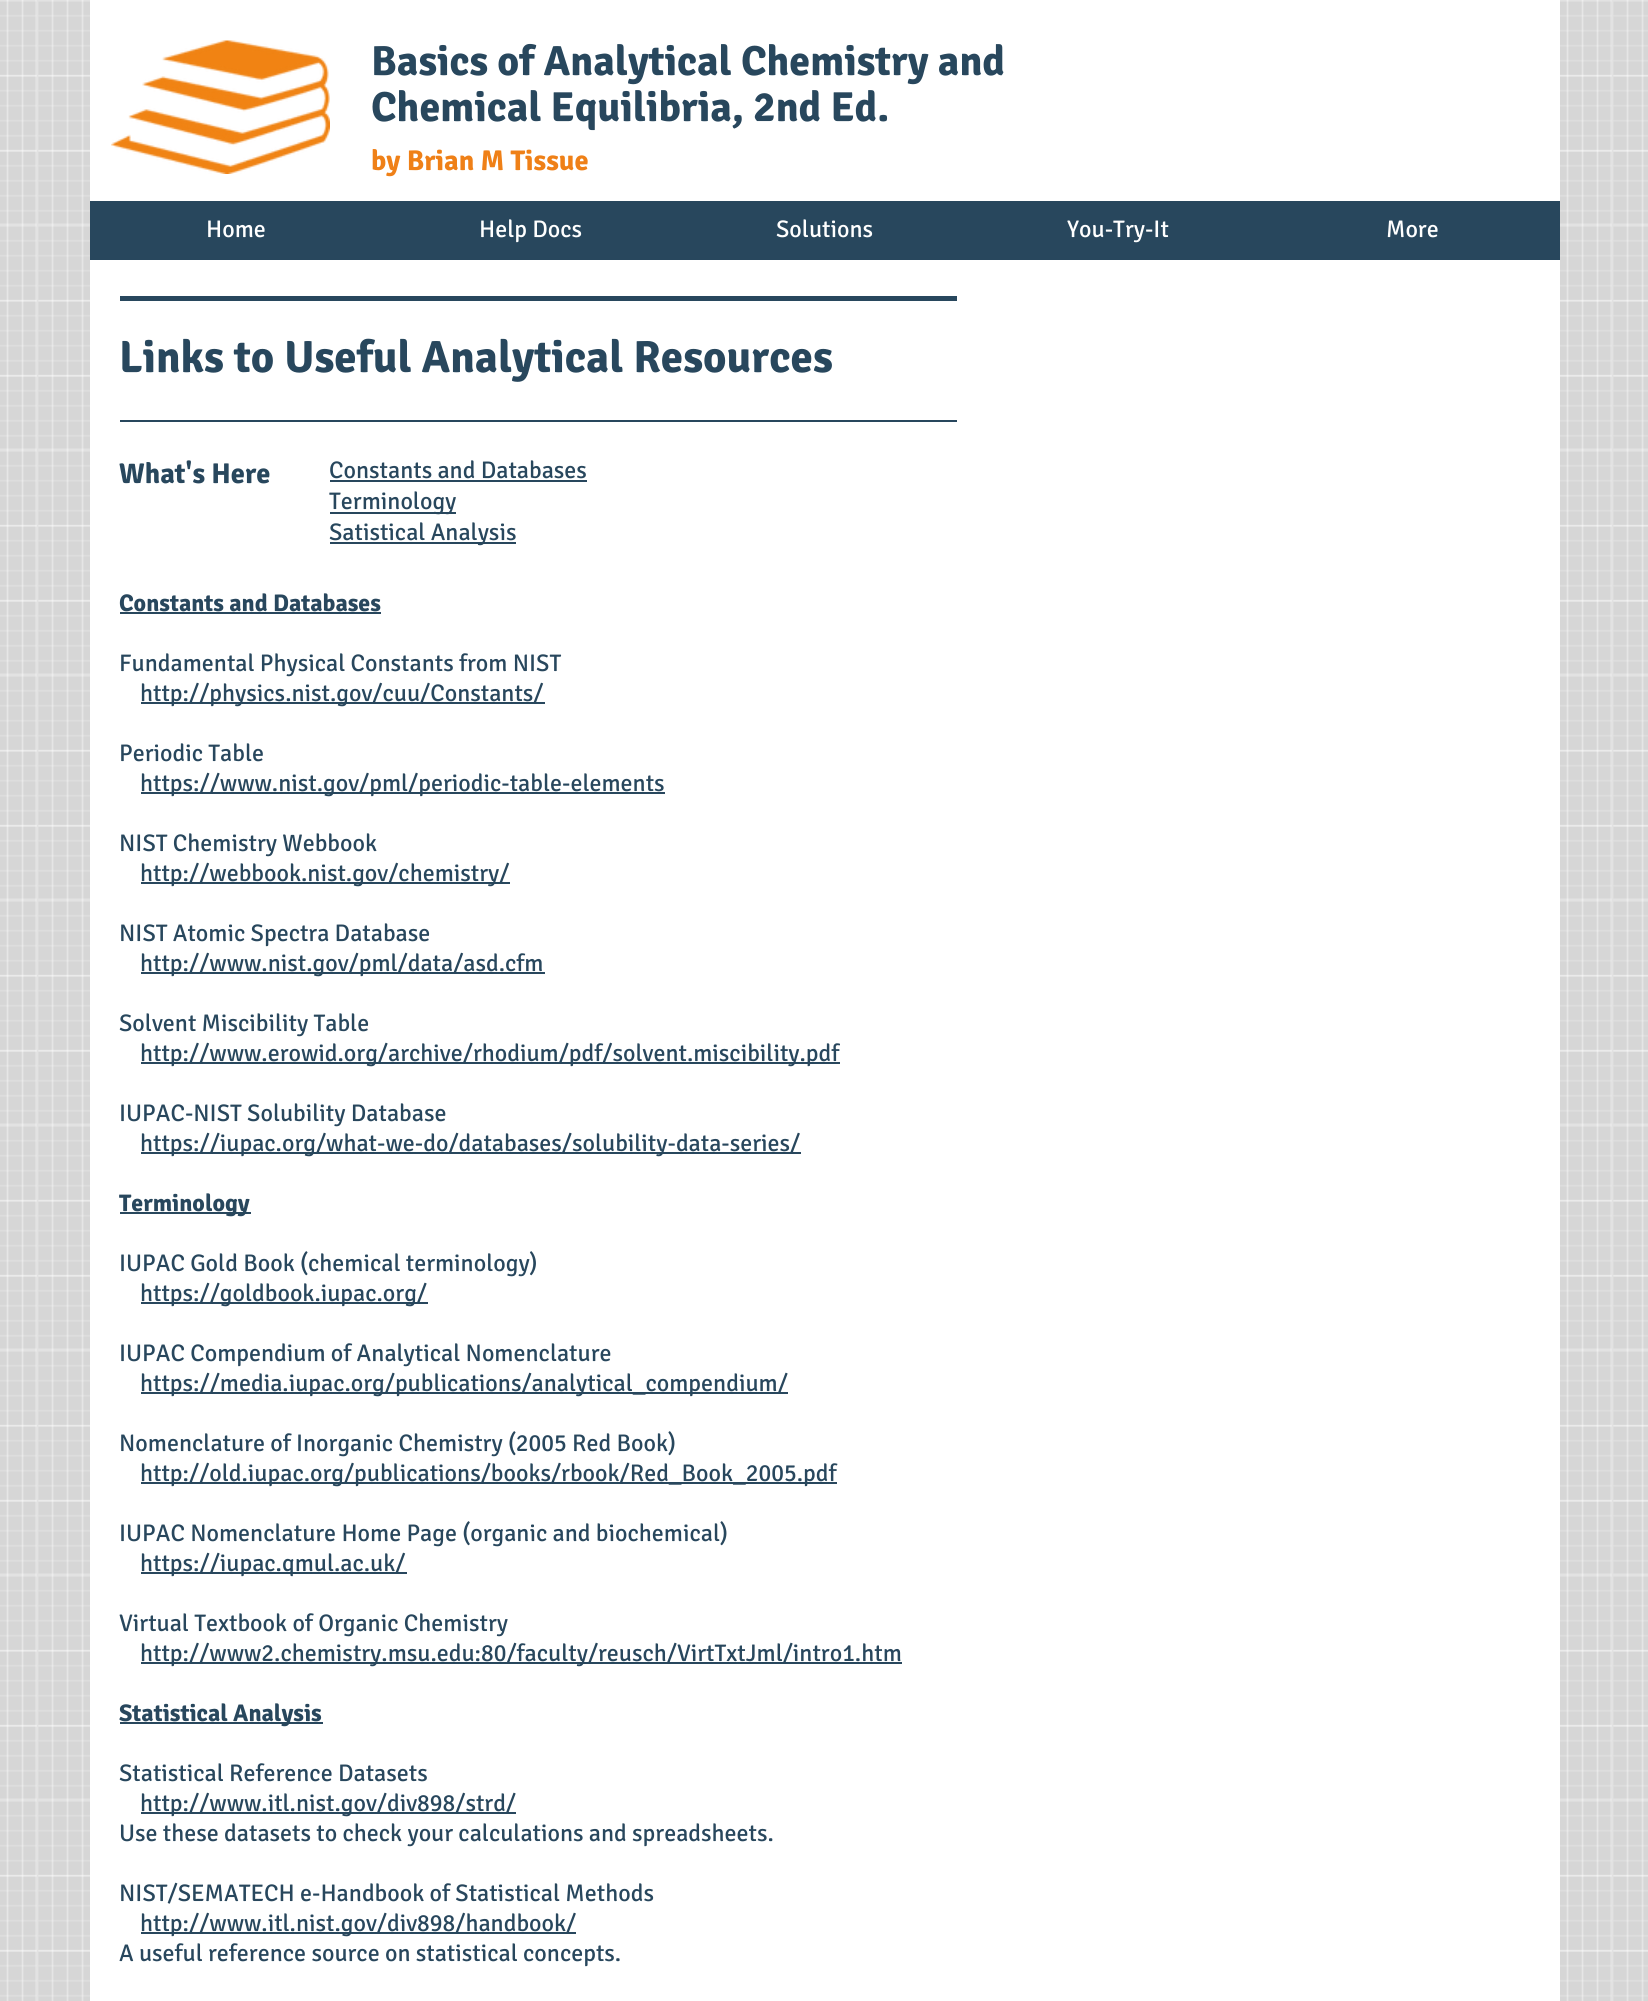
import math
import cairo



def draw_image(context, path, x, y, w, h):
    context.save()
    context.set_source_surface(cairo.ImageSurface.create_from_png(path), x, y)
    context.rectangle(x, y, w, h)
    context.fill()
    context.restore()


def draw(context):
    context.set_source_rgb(214 / 255, 214 / 255, 214 / 255)
    context.paint()
    draw_image(context, "images/1.png", 0, 0, 1648, 2001)
    context.set_source_rgb(1, 1, 1)
    context.rectangle(90, 0, 1470, 2001)
    context.fill()
    draw_image(context, "images/2.png", 111, 40, 219, 134)
    context.set_source_rgb(40 / 255, 71 / 255, 93 / 255)
    context.rectangle(90, 201, 1470, 59)
    context.fill()
    context.rectangle(120, 296, 837, 5)
    context.fill()
    context.rectangle(120, 420, 837, 2)
    context.fill()
    context.rectangle(330, 480, 257, 2)
    context.fill()
    context.rectangle(330, 512, 126, 2)
    context.fill()
    context.rectangle(330, 542, 186, 2)
    context.fill()
    context.rectangle(120, 612, 261, 2)
    context.fill()
    context.rectangle(141, 702, 404, 2)
    context.fill()
    context.rectangle(141, 792, 524, 2)
    context.fill()
    context.rectangle(141, 882, 369, 2)
    context.fill()
    context.rectangle(141, 972, 404, 2)
    context.fill()
    context.rectangle(141, 1062, 699, 2)
    context.fill()
    context.rectangle(141, 1152, 660, 2)
    context.fill()
    context.rectangle(120, 1212, 131, 2)
    context.fill()
    context.rectangle(141, 1302, 287, 2)
    context.fill()
    context.rectangle(141, 1392, 647, 2)
    context.fill()
    context.rectangle(141, 1482, 696, 2)
    context.fill()
    context.rectangle(141, 1572, 266, 2)
    context.fill()
    context.rectangle(141, 1662, 761, 2)
    context.fill()
    context.rectangle(120, 1722, 203, 2)
    context.fill()
    context.rectangle(141, 1812, 375, 2)
    context.fill()
    context.rectangle(141, 1932, 435, 2)
    context.fill()
    context.select_font_face("Signika", cairo.FontSlant.NORMAL, cairo.FontWeight.BOLD)
    context.set_font_size(42)
    context.move_to(371, 75)
    context.show_text("Basics of Analytical Chemistry and")
    context.move_to(371, 121)
    context.show_text("Chemical Equilibria, 2nd Ed.")
    context.set_font_size(28.5)
    context.set_source_rgb(239 / 255, 128 / 255, 23 / 255)
    context.move_to(371, 170)
    context.show_text("by Brian M Tissue")
    context.select_font_face("Signika")
    context.set_font_size(24)
    context.set_source_rgb(1, 1, 1)
    context.move_to(206, 237)
    context.show_text("Home")
    context.move_to(479, 237)
    context.show_text("Help Docs")
    context.move_to(776, 237)
    context.show_text("Solutions")
    context.move_to(1067, 237)
    context.show_text("You-Try-It")
    context.move_to(1386, 237)
    context.show_text("More")
    context.select_font_face("Signika", cairo.FontSlant.NORMAL, cairo.FontWeight.BOLD)
    context.set_font_size(45)
    context.set_source_rgb(40 / 255, 71 / 255, 93 / 255)
    context.move_to(119, 372)
    context.show_text("Links to Useful Analytical Resources")
    context.set_font_size(28.5)
    context.move_to(119, 483)
    context.show_text("What's Here")
    context.select_font_face("Signika")
    context.set_font_size(24)
    context.move_to(329, 478)
    context.show_text("Constants and Databases")
    context.move_to(329, 509)
    context.show_text("Terminology")
    context.move_to(329, 540)
    context.show_text("Satistical Analysis")
    context.select_font_face("Signika", cairo.FontSlant.NORMAL, cairo.FontWeight.BOLD)
    context.move_to(119, 611)
    context.show_text("Constants and Databases")
    context.select_font_face("Signika")
    context.move_to(119, 671)
    context.show_text("Fundamental Physical Constants from NIST")
    context.move_to(140, 701)
    context.show_text("http://physics.nist.gov/cuu/Constants/")
    context.move_to(119, 761)
    context.show_text("Periodic Table")
    context.move_to(140, 791)
    context.show_text("https://www.nist.gov/pml/periodic-table-elements")
    context.move_to(119, 851)
    context.show_text("NIST Chemistry Webbook")
    context.move_to(140, 881)
    context.show_text("http://webbook.nist.gov/chemistry/")
    context.move_to(119, 941)
    context.show_text("NIST Atomic Spectra Database")
    context.move_to(140, 971)
    context.show_text("http://www.nist.gov/pml/data/asd.cfm")
    context.move_to(119, 1031)
    context.show_text("Solvent Miscibility Table")
    context.move_to(140, 1061)
    context.show_text("http://www.erowid.org/archive/rhodium/pdf/solvent.miscibility.pdf")
    context.move_to(119, 1121)
    context.show_text("IUPAC-NIST Solubility Database")
    context.move_to(140, 1151)
    context.show_text("https://iupac.org/what-we-do/databases/solubility-data-series/")
    context.select_font_face("Signika", cairo.FontSlant.NORMAL, cairo.FontWeight.BOLD)
    context.move_to(119, 1211)
    context.show_text("Terminology")
    context.select_font_face("Signika")
    context.move_to(119, 1271)
    context.show_text("IUPAC Gold Book (chemical terminology)")
    context.move_to(140, 1301)
    context.show_text("https://goldbook.iupac.org/")
    context.move_to(119, 1361)
    context.show_text("IUPAC Compendium of Analytical Nomenclature")
    context.move_to(140, 1391)
    context.show_text("https://media.iupac.org/publications/analytical_compendium/")
    context.move_to(119, 1451)
    context.show_text("Nomenclature of Inorganic Chemistry (2005 Red Book)")
    context.move_to(140, 1481)
    context.show_text("http://old.iupac.org/publications/books/rbook/Red_Book_2005.pdf")
    context.move_to(119, 1541)
    context.show_text("IUPAC Nomenclature Home Page (organic and biochemical)")
    context.move_to(140, 1571)
    context.show_text("https://iupac.qmul.ac.uk/")
    context.move_to(119, 1631)
    context.show_text("Virtual Textbook of Organic Chemistry")
    context.move_to(140, 1661)
    context.show_text("http://www2.chemistry.msu.edu:80/faculty/reusch/VirtTxtJml/intro1.htm")
    context.select_font_face("Signika", cairo.FontSlant.NORMAL, cairo.FontWeight.BOLD)
    context.move_to(119, 1721)
    context.show_text("Statistical Analysis")
    context.select_font_face("Signika")
    context.move_to(119, 1781)
    context.show_text("Statistical Reference Datasets")
    context.move_to(140, 1811)
    context.show_text("http://www.itl.nist.gov/div898/strd/")
    context.move_to(119, 1841)
    context.show_text("Use these datasets to check your calculations and spreadsheets.")
    context.move_to(119, 1901)
    context.show_text("NIST/SEMATECH e-Handbook of Statistical Methods")
    context.move_to(140, 1931)
    context.show_text("http://www.itl.nist.gov/div898/handbook/")
    context.move_to(119, 1961)
    context.show_text("A useful reference source on statistical concepts.")


surface = cairo.ImageSurface(cairo.Format.RGB24, 1648, 2001)
context = cairo.Context(surface)
options = cairo.FontOptions()
options.set_hint_metrics(cairo.HintMetrics.OFF)
options.set_hint_style(cairo.HintStyle.NONE)
context.set_font_options(options)
context.set_miter_limit(4)
draw(context)
surface.write_to_png("out.png")
